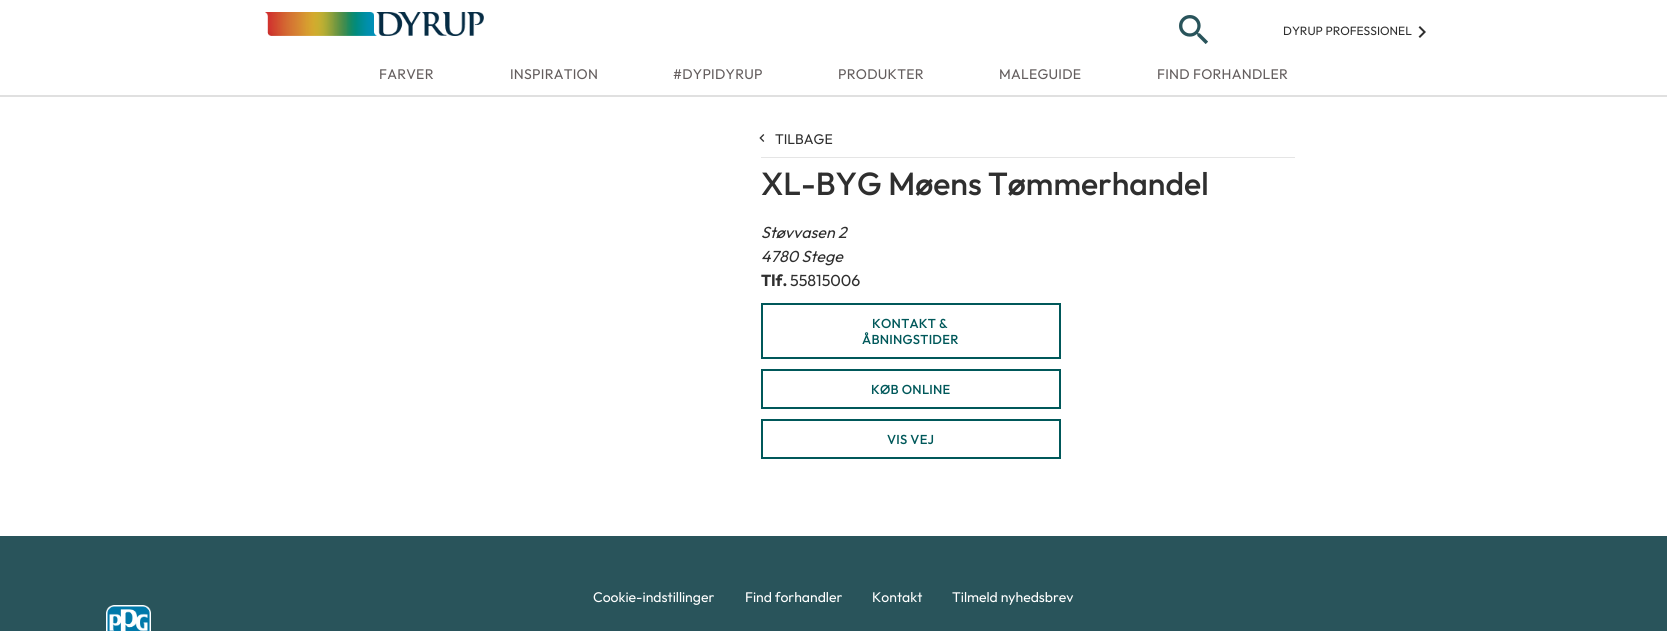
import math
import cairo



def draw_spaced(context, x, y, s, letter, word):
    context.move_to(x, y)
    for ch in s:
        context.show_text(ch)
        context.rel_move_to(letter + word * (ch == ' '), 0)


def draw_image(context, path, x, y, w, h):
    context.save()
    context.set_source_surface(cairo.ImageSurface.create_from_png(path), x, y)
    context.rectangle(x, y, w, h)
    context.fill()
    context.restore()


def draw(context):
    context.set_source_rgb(1, 1, 1)
    context.paint()
    draw_image(context, "images/1.png", 265, 12, 219, 24)
    draw_image(context, "images/2.png", 1179, 15, 29, 29)
    draw_image(context, "images/3.png", 1418, 26, 8, 12)
    context.set_source_rgb(224 / 255, 224 / 255, 224 / 255)
    context.rectangle(0, 95, 1667, 2)
    context.fill()
    context.set_source_rgb(229 / 255, 229 / 255, 229 / 255)
    context.rectangle(761, 157, 534, 1)
    context.fill()
    draw_image(context, "images/4.png", 759, 134, 6, 8)
    context.rectangle(762, 304, 298, 54)
    context.set_source_rgb(0, 88 / 255, 90 / 255)
    context.stroke()
    context.rectangle(762, 370, 298, 38)
    context.stroke()
    context.rectangle(762, 420, 298, 38)
    context.stroke()
    context.set_source_rgb(41 / 255, 84 / 255, 91 / 255)
    context.rectangle(0, 536, 1667, 95)
    context.fill()
    draw_image(context, "images/5.png", 106, 605, 45, 26)
    context.select_font_face("Outfit")
    context.set_font_size(12)
    context.set_source_rgb(47 / 255, 47 / 255, 47 / 255)
    context.move_to(1283, 35)
    context.show_text("DYRUP PROFESSIONEL")
    context.set_font_size(14)
    context.set_source_rgb(99 / 255, 93 / 255, 93 / 255)
    draw_spaced(context, 379, 79, "FARVER", 0.25, 0)
    draw_spaced(context, 510, 79, "INSPIRATION", 0.25, 0)
    draw_spaced(context, 673, 79, "#DYPIDYRUP", 0.25, 0)
    draw_spaced(context, 838, 79, "PRODUKTER", 0.25, 0)
    draw_spaced(context, 999, 79, "MALEGUIDE", 0.25, 0)
    draw_spaced(context, 1157, 79, "FIND FORHANDLER", 0.25, 0)
    context.set_source_rgb(47 / 255, 47 / 255, 47 / 255)
    context.move_to(775, 144)
    context.show_text("TILBAGE")
    context.select_font_face("Outfit Medium")
    context.set_font_size(32)
    context.move_to(761, 195)
    context.show_text("XL-BYG Møens Tømmerhandel")
    context.select_font_face("Outfit", cairo.FontSlant.ITALIC)
    context.set_font_size(16)
    context.move_to(761, 238)
    context.show_text("Støvvasen 2")
    context.move_to(761, 262)
    context.show_text("4780 Stege")
    context.select_font_face("Outfit", cairo.FontSlant.NORMAL, cairo.FontWeight.BOLD)
    context.move_to(761, 286)
    context.show_text("Tlf.")
    context.select_font_face("Outfit")
    context.move_to(790, 286)
    context.show_text("55815006")
    context.select_font_face("Outfit Medium")
    context.set_font_size(13)
    context.set_source_rgb(0, 88 / 255, 90 / 255)
    draw_spaced(context, 872, 328, "KONTAKT &", 0.25, 0)
    draw_spaced(context, 862, 344, "ÅBNINGSTIDER", 0.25, 0)
    draw_spaced(context, 871, 394, "KØB ONLINE", 0.25, 0)
    draw_spaced(context, 887, 444, "VIS VEJ", 0.25, 0)
    context.select_font_face("Outfit")
    context.set_font_size(14)
    context.set_source_rgb(1, 1, 1)
    context.move_to(593, 602)
    context.show_text("Cookie-indstillinger")
    context.move_to(745, 602)
    context.show_text("Find forhandler")
    context.move_to(872, 602)
    context.show_text("Kontakt")
    context.move_to(952, 602)
    context.show_text("Tilmeld nyhedsbrev")


surface = cairo.ImageSurface(cairo.Format.RGB24, 1667, 631)
context = cairo.Context(surface)
options = cairo.FontOptions()
options.set_hint_metrics(cairo.HintMetrics.OFF)
options.set_hint_style(cairo.HintStyle.NONE)
context.set_font_options(options)
context.set_miter_limit(4)
draw(context)
surface.write_to_png("out.png")
